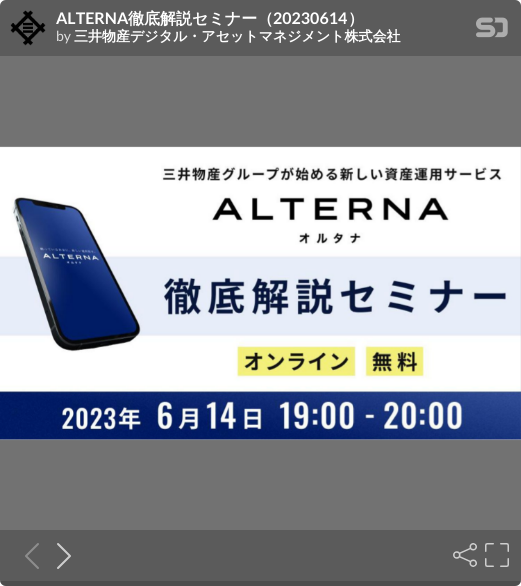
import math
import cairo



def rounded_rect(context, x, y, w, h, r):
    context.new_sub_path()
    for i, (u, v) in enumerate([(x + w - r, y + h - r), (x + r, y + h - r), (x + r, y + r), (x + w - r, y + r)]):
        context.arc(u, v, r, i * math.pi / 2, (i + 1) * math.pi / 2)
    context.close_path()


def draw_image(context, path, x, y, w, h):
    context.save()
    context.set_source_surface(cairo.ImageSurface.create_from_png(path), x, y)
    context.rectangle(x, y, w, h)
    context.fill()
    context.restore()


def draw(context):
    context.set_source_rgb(1, 1, 1)
    context.paint()
    context.set_source_rgb(114 / 255, 114 / 255, 114 / 255)
    rounded_rect(context, 0, 0, 521, 586, 6)
    context.fill()
    draw_image(context, "images/1.png", 0, 146, 521, 295)
    context.set_source_rgba(0, 0, 0, 0.2)
    context.new_path()
    context.move_to(6, 0)
    context.line_to(515, 0)
    context.curve_to(518.5, 0, 521, 2.5, 521, 6)
    context.line_to(521, 56)
    context.line_to(0, 56)
    context.line_to(0, 6)
    context.curve_to(0, 2.5, 2.5, 0, 6, 0)
    context.close_path()
    context.fill()
    draw_image(context, "images/2.png", 10, 10, 36, 36)
    draw_image(context, "images/3.png", 476, 17, 32, 21)
    context.new_path()
    context.move_to(0, 530)
    context.line_to(521, 530)
    context.line_to(521, 580)
    context.curve_to(521, 583.5, 518.5, 586, 515, 586)
    context.line_to(6, 586)
    context.curve_to(2.5, 586, 0, 583.5, 0, 580)
    context.close_path()
    context.fill()
    draw_image(context, "images/4.png", 25, 543, 14, 26)
    draw_image(context, "images/5.png", 57, 543, 14, 26)
    draw_image(context, "images/6.png", 453, 543, 24, 24)
    draw_image(context, "images/7.png", 485, 543, 24, 24)
    context.save()
    rounded_rect(context, 0, 0, 521, 586, 6)
    context.clip()
    context.set_source_rgba(0, 0, 0, 0.15)
    context.rectangle(0, 581, 521, 5)
    context.fill()
    context.restore()
    context.select_font_face("Lato", cairo.FontSlant.NORMAL, cairo.FontWeight.BOLD)
    context.set_font_size(16)
    context.set_source_rgb(1, 1, 1)
    context.move_to(56, 24)
    context.show_text("ALTERNA")
    context.select_font_face("WenQuanYi Zen Hei", cairo.FontSlant.NORMAL, cairo.FontWeight.BOLD)
    context.move_to(128, 24)
    context.show_text("徹底解説セミナー（")
    context.select_font_face("Lato", cairo.FontSlant.NORMAL, cairo.FontWeight.BOLD)
    context.move_to(273, 24)
    context.show_text("20230614")
    context.select_font_face("WenQuanYi Zen Hei", cairo.FontSlant.NORMAL, cairo.FontWeight.BOLD)
    context.move_to(348, 24)
    context.show_text("）")
    context.select_font_face("Lato")
    context.set_font_size(14)
    context.set_source_rgb(222 / 255, 222 / 255, 222 / 255)
    context.move_to(56, 41)
    context.show_text("by")
    context.select_font_face("WenQuanYi Zen Hei", cairo.FontSlant.NORMAL, cairo.FontWeight.BOLD)
    context.set_source_rgb(1, 1, 1)
    context.move_to(74, 41)
    context.show_text("三井物産デジタル・アセットマネジメント株式会社")


surface = cairo.ImageSurface(cairo.Format.RGB24, 521, 586)
context = cairo.Context(surface)
options = cairo.FontOptions()
options.set_hint_metrics(cairo.HintMetrics.OFF)
options.set_hint_style(cairo.HintStyle.NONE)
context.set_font_options(options)
context.set_miter_limit(4)
draw(context)
surface.write_to_png("out.png")
